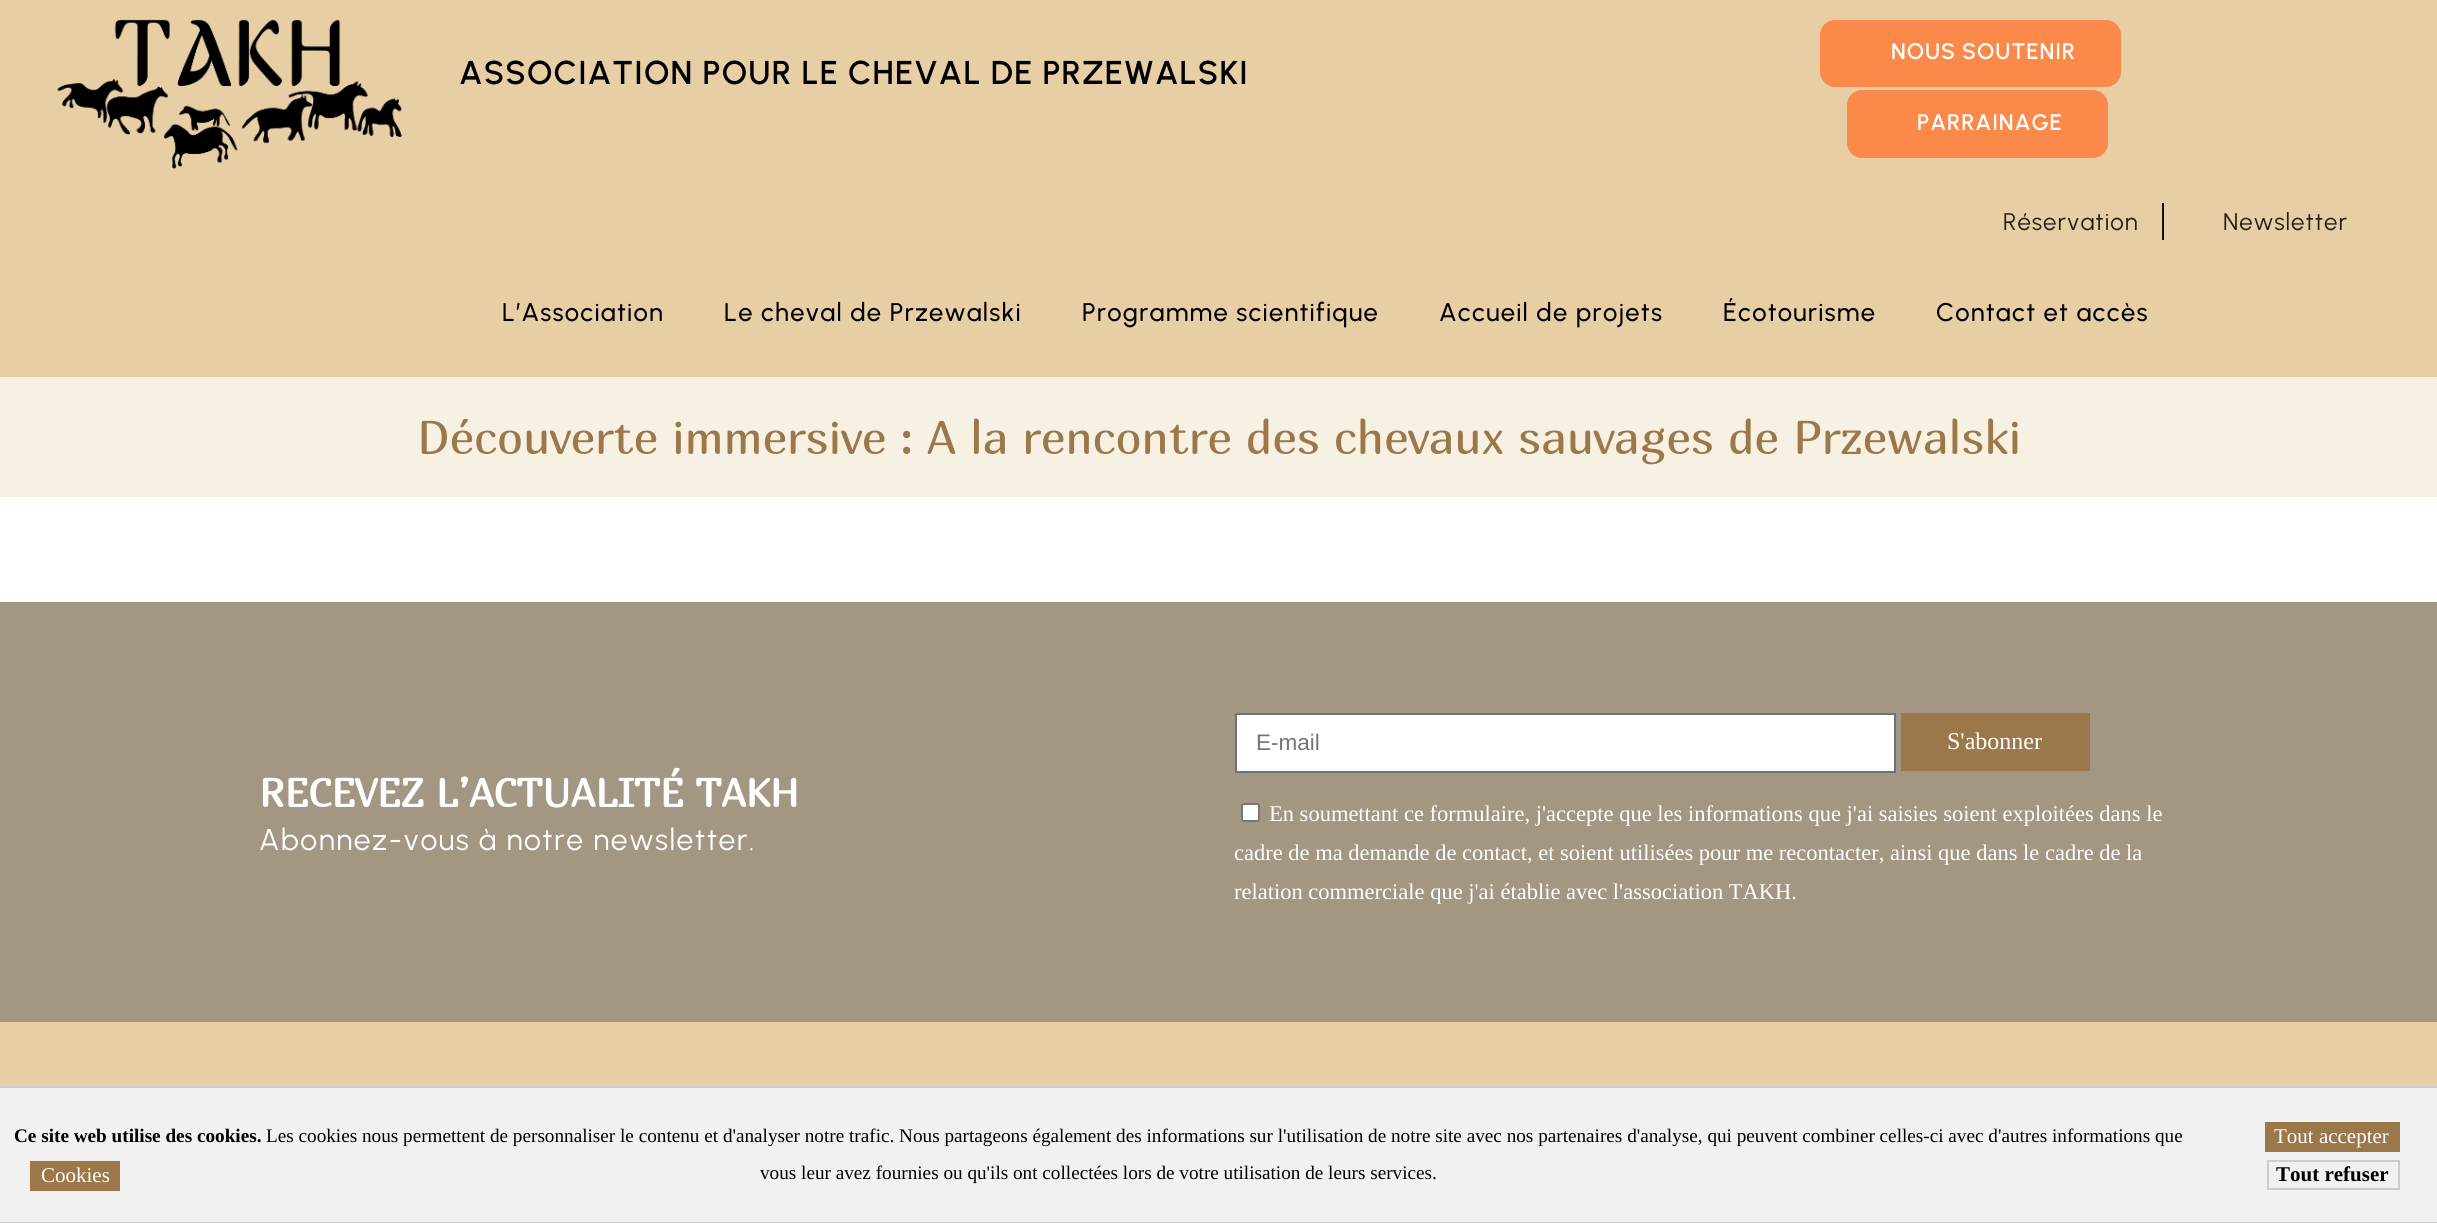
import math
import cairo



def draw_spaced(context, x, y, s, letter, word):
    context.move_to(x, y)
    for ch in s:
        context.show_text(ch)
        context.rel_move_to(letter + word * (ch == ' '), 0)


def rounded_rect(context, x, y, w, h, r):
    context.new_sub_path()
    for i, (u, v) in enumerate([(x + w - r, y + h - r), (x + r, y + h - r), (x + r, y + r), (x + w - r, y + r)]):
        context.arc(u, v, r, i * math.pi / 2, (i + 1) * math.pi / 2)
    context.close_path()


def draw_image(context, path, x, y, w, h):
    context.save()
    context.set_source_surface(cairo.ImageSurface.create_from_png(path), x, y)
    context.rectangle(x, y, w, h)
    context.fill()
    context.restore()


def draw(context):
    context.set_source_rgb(1, 1, 1)
    context.paint()
    context.set_source_rgb(232 / 255, 206 / 255, 165 / 255)
    context.rectangle(0, 0, 2437, 377)
    context.fill()
    draw_image(context, "images/1.png", 57, 19, 345, 150)
    context.set_source_rgb(251 / 255, 137 / 255, 73 / 255)
    rounded_rect(context, 1820, 20, 301, 67, 15)
    context.fill()
    rounded_rect(context, 1847, 90, 261, 68, 15)
    context.fill()
    context.set_source_rgb(15 / 255, 15 / 255, 15 / 255)
    context.rectangle(2162, 203, 2, 37)
    context.fill()
    context.set_source_rgb(246 / 255, 241 / 255, 227 / 255)
    context.rectangle(0, 377, 2437, 120)
    context.fill()
    context.set_source_rgb(163 / 255, 150 / 255, 130 / 255)
    context.rectangle(0, 602, 2437, 420)
    context.fill()
    context.set_source_rgb(1, 1, 1)
    context.rectangle(1236, 714, 659, 58)
    context.fill_preserve()
    context.set_source_rgb(105 / 255, 114 / 255, 125 / 255)
    context.stroke()
    context.set_source_rgb(156 / 255, 119 / 255, 74 / 255)
    context.rectangle(1901, 713, 189, 58)
    context.fill()
    context.set_source_rgb(1, 1, 1)
    rounded_rect(context, 1242, 804, 17, 17, 2)
    context.fill_preserve()
    context.set_source_rgb(118 / 255, 118 / 255, 118 / 255)
    context.stroke()
    context.set_source_rgb(232 / 255, 206 / 255, 165 / 255)
    context.rectangle(0, 1022, 2437, 64)
    context.fill()
    context.set_source_rgb(241 / 255, 241 / 255, 241 / 255)
    context.rectangle(-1, 1087, 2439, 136)
    context.fill_preserve()
    context.set_source_rgb(204 / 255, 204 / 255, 204 / 255)
    context.stroke()
    context.set_source_rgb(156 / 255, 119 / 255, 74 / 255)
    context.rectangle(2265, 1122, 135, 30)
    context.fill()
    context.rectangle(2268, 1161, 131, 28)
    context.set_source_rgb(204 / 255, 204 / 255, 204 / 255)
    context.stroke()
    context.set_source_rgb(156 / 255, 119 / 255, 74 / 255)
    context.rectangle(30, 1161, 90, 30)
    context.fill()
    context.select_font_face("Urbanist SemiBold")
    context.set_font_size(33)
    context.set_source_rgb(0, 0, 0)
    draw_spaced(context, 459, 84, "ASSOCIATION POUR LE CHEVAL DE PRZEWALSKI", 1.2, 0)
    context.set_font_size(22.5)
    context.set_source_rgb(1, 1, 1)
    draw_spaced(context, 1891, 59, "NOUS SOUTENIR", 0.9, 0)
    draw_spaced(context, 1917, 130, "PARRAINAGE", 0.9, 0)
    context.select_font_face("Urbanist")
    context.set_font_size(24)
    context.set_source_rgb(34 / 255, 30 / 255, 25 / 255)
    draw_spaced(context, 2003, 230, "Réservation", 1, 0)
    draw_spaced(context, 2223, 230, "Newsletter", 1, 0)
    context.select_font_face("Urbanist Medium")
    context.set_font_size(25.5)
    context.set_source_rgb(0, 0, 0)
    draw_spaced(context, 502, 321, "L’Association", 1.2, 0)
    draw_spaced(context, 724, 321, "Le cheval de Przewalski", 1.2, 0)
    draw_spaced(context, 1082, 321, "Programme scientifique", 1.2, 0)
    draw_spaced(context, 1439, 321, "Accueil de projets", 1.2, 0)
    draw_spaced(context, 1723, 321, "Écotourisme", 1.2, 0)
    draw_spaced(context, 1936, 321, "Contact et accès", 1.2, 0)
    context.select_font_face("Marmelad")
    context.set_font_size(46.8)
    context.set_source_rgb(156 / 255, 119 / 255, 74 / 255)
    context.move_to(417, 454)
    context.show_text("Découverte immersive : A la rencontre des chevaux sauvages de Przewalski")
    context.select_font_face("Marmelad", cairo.FontSlant.NORMAL, cairo.FontWeight.BOLD)
    context.set_font_size(39.6)
    context.set_source_rgb(1, 1, 1)
    context.move_to(259, 807)
    context.show_text("RECEVEZ L’ACTUALITÉ TAKH")
    context.select_font_face("Urbanist")
    context.set_font_size(30)
    draw_spaced(context, 259, 850, "Abonnez-vous à notre newsletter.", 1.5, 0)
    context.select_font_face("Liberation Sans")
    context.set_font_size(22.5)
    context.set_source_rgb(117 / 255, 117 / 255, 117 / 255)
    context.move_to(1256, 750)
    context.show_text("E-mail")
    context.select_font_face("Liberation Serif")
    context.set_font_size(24)
    context.set_source_rgb(1, 1, 1)
    context.move_to(1947, 749)
    context.show_text("S'abonner")
    context.set_font_size(22.5)
    context.move_to(1269, 821)
    context.show_text("En soumettant ce formulaire, j'accepte que les informations que j'ai saisies soient exploitées dans le")
    context.move_to(1234, 860)
    context.show_text("cadre de ma demande de contact, et soient utilisées pour me recontacter, ainsi que dans le cadre de la")
    context.move_to(1234, 899)
    context.show_text("relation commerciale que j'ai établie avec l'association TAKH.")
    context.select_font_face("Liberation Serif", cairo.FontSlant.NORMAL, cairo.FontWeight.BOLD)
    context.set_font_size(19.2)
    context.set_source_rgb(0, 0, 0)
    context.move_to(14, 1142)
    context.show_text("Ce site web utilise des cookies.")
    context.select_font_face("Liberation Serif")
    context.move_to(266, 1142)
    context.show_text("Les cookies nous permettent de personnaliser le contenu et d'analyser notre trafic. Nous partageons également des informations sur l'utilisation de notre site avec nos partenaires d'analyse, qui peuvent combiner celles-ci avec d'autres informations que")
    context.move_to(760, 1179)
    context.show_text("vous leur avez fournies ou qu'ils ont collectées lors de votre utilisation de leurs services.")
    context.set_font_size(21)
    context.set_source_rgb(1, 1, 1)
    context.move_to(2274, 1143)
    context.show_text("Tout accepter")
    context.select_font_face("Liberation Serif", cairo.FontSlant.NORMAL, cairo.FontWeight.BOLD)
    context.set_source_rgb(0, 0, 0)
    context.move_to(2276, 1181)
    context.show_text("Tout refuser")
    context.select_font_face("Liberation Serif")
    context.set_source_rgb(1, 1, 1)
    context.move_to(41, 1182)
    context.show_text("Cookies")


surface = cairo.ImageSurface(cairo.Format.RGB24, 2437, 1223)
context = cairo.Context(surface)
options = cairo.FontOptions()
options.set_hint_metrics(cairo.HintMetrics.OFF)
options.set_hint_style(cairo.HintStyle.NONE)
context.set_font_options(options)
context.set_miter_limit(4)
draw(context)
surface.write_to_png("out.png")
